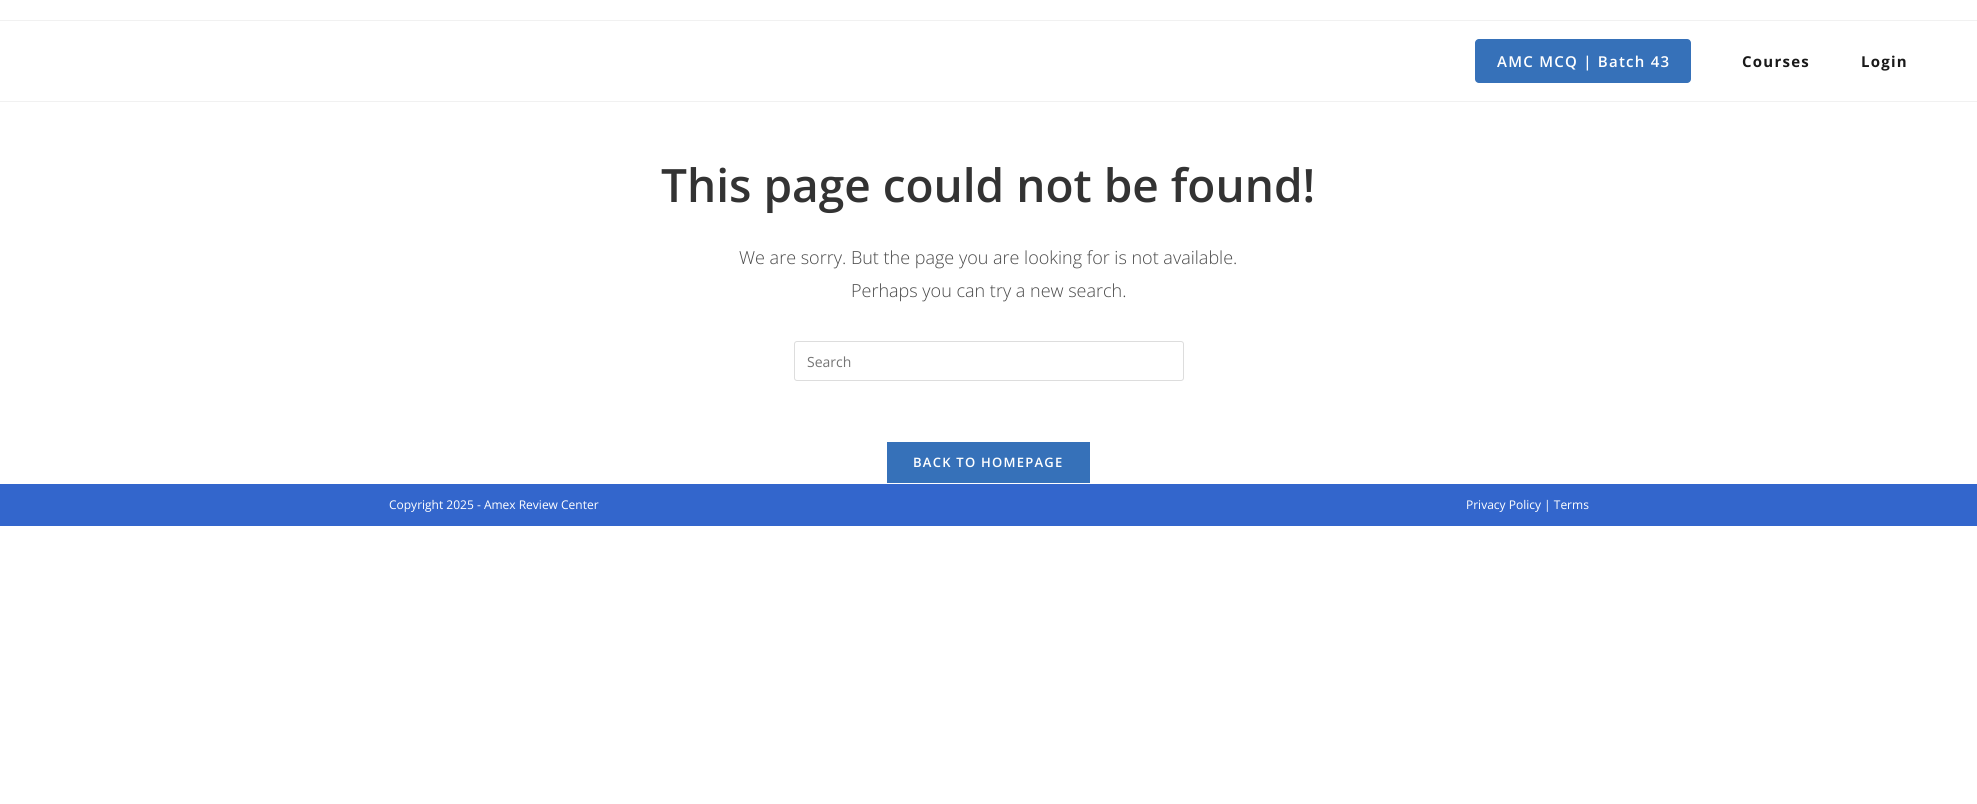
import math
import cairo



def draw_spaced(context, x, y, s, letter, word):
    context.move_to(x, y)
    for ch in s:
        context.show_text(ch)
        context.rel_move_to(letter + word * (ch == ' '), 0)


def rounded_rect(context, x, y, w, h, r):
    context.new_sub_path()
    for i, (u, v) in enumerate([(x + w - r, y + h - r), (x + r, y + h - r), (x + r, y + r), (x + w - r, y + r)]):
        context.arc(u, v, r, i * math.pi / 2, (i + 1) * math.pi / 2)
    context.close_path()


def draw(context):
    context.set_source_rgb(1, 1, 1)
    context.paint()
    context.set_source_rgb(241 / 255, 241 / 255, 241 / 255)
    context.rectangle(0, 20, 1977, 1)
    context.fill()
    context.rectangle(0, 101, 1977, 1)
    context.fill()
    context.set_source_rgb(54 / 255, 113 / 255, 185 / 255)
    rounded_rect(context, 1475, 39, 216, 44, 4)
    context.fill()
    rounded_rect(context, 794.5, 341.5, 389, 39, 2.5)
    context.set_source_rgb(221 / 255, 221 / 255, 221 / 255)
    context.set_line_width(1)
    context.stroke()
    context.set_source_rgb(54 / 255, 113 / 255, 185 / 255)
    context.rectangle(887, 442, 203, 41)
    context.fill()
    context.set_source_rgb(51 / 255, 102 / 255, 204 / 255)
    context.rectangle(0, 484, 1977, 42)
    context.fill()
    context.select_font_face("Open Sans SemiBold")
    context.set_font_size(15)
    context.set_source_rgb(1, 1, 1)
    draw_spaced(context, 1497, 67, "AMC MCQ | Batch 43", 1.25, 0)
    context.select_font_face("Open Sans", cairo.FontSlant.NORMAL, cairo.FontWeight.BOLD)
    context.set_source_rgb(25 / 255, 25 / 255, 25 / 255)
    draw_spaced(context, 1742, 67, "Courses", 1.25, 0)
    draw_spaced(context, 1861, 67, "Login", 1.25, 0)
    context.select_font_face("Open Sans SemiBold")
    context.set_font_size(46)
    context.set_source_rgb(51 / 255, 51 / 255, 51 / 255)
    context.move_to(661, 202)
    context.show_text("This page could not be found!")
    context.select_font_face("Open Sans Light")
    context.set_font_size(18)
    context.set_source_rgb(74 / 255, 74 / 255, 74 / 255)
    context.move_to(739, 264)
    context.show_text("We are sorry. But the page you are looking for is not available.")
    context.move_to(851, 297)
    context.show_text("Perhaps you can try a new search.")
    context.select_font_face("Open Sans")
    context.set_font_size(14)
    context.set_source_rgb(117 / 255, 117 / 255, 117 / 255)
    context.move_to(807, 367)
    context.show_text("Search")
    context.select_font_face("Open Sans SemiBold")
    context.set_font_size(13)
    context.set_source_rgb(1, 1, 1)
    draw_spaced(context, 913, 467, "BACK TO HOMEPAGE", 1.25, 0)
    context.select_font_face("Open Sans")
    context.set_font_size(12)
    context.move_to(389, 509)
    context.show_text("Copyright 2025 - Amex Review Center")
    context.move_to(1466, 509)
    context.show_text("Privacy Policy | Terms")


surface = cairo.ImageSurface(cairo.Format.RGB24, 1977, 804)
context = cairo.Context(surface)
options = cairo.FontOptions()
options.set_hint_metrics(cairo.HintMetrics.OFF)
options.set_hint_style(cairo.HintStyle.NONE)
context.set_font_options(options)
context.set_miter_limit(4)
draw(context)
surface.write_to_png("out.png")
